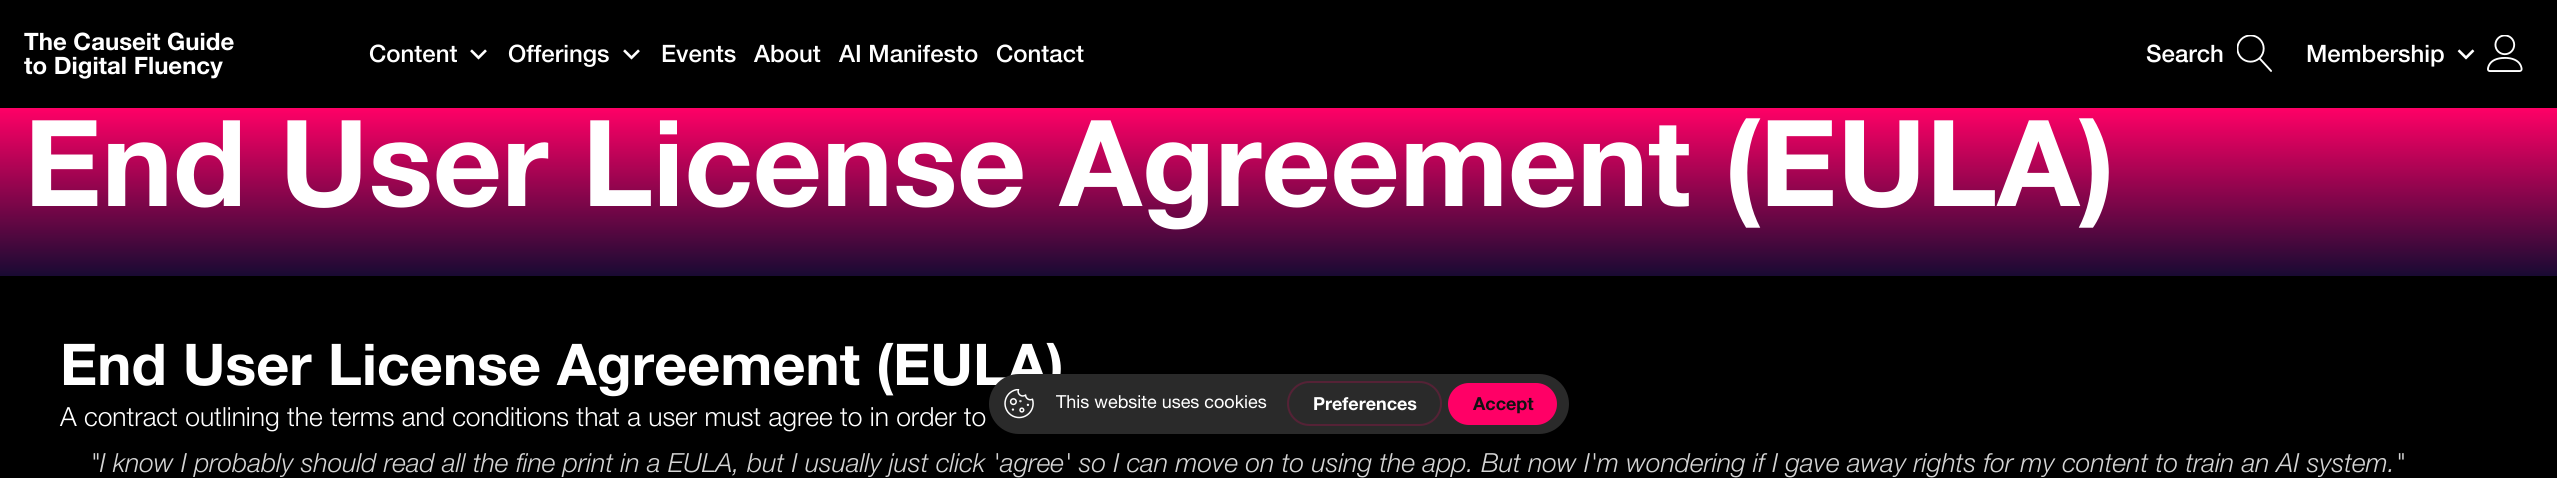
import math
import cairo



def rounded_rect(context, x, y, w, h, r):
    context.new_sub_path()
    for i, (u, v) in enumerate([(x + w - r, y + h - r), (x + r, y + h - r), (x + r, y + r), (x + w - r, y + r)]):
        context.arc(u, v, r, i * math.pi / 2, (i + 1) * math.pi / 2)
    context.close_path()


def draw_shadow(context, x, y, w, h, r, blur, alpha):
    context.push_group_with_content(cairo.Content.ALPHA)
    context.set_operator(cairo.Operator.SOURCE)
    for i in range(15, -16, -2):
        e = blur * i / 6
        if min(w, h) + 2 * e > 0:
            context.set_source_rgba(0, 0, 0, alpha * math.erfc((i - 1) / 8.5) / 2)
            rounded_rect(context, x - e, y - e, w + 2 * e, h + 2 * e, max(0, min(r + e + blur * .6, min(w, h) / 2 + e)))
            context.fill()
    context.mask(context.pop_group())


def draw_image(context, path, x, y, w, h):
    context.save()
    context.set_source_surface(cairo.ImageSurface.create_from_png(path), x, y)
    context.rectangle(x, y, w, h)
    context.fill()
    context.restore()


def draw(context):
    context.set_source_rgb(0, 0, 0)
    context.paint()
    draw_image(context, "images/1.png", 470, 49, 17, 11)
    draw_image(context, "images/1.png", 623, 49, 17, 11)
    draw_image(context, "images/2.png", 2237, 35, 35, 37)
    draw_image(context, "images/3.png", 2457, 49, 18, 11)
    draw_image(context, "images/4.png", 2487, 35, 36, 37)
    gradient = cairo.LinearGradient(1279, 108, 1279, 276)
    gradient.add_color_stop_rgba(0, 1, 0, 102 / 255, 1)
    gradient.add_color_stop_rgba(1, 25 / 255, 10 / 255, 51 / 255, 1)
    context.set_source(gradient)
    context.rectangle(0, 108, 2557, 168)
    context.fill()
    context.set_source_rgb(0, 0, 0)
    draw_shadow(context, 989, 377, 580, 60, 30, 6, 0.2)
    context.select_font_face("Helvetica Neue", cairo.FontSlant.NORMAL, cairo.FontWeight.BOLD)
    context.set_font_size(24)
    context.set_source_rgb(1, 1, 1)
    context.move_to(24, 50)
    context.show_text("The Causeit Guide")
    context.move_to(24, 74)
    context.show_text("to Digital Fluency")
    context.select_font_face("Helvetica Neue Medium")
    context.move_to(369, 62)
    context.show_text("Content")
    context.move_to(508, 62)
    context.show_text("Offerings")
    context.move_to(661, 62)
    context.show_text("Events")
    context.move_to(754, 62)
    context.show_text("About")
    context.move_to(839, 62)
    context.show_text("AI Manifesto")
    context.move_to(996, 62)
    context.show_text("Contact")
    context.move_to(2146, 62)
    context.show_text("Search")
    context.move_to(2306, 62)
    context.show_text("Membership")
    context.select_font_face("Helvetica Neue", cairo.FontSlant.NORMAL, cairo.FontWeight.BOLD)
    context.set_font_size(120)
    context.move_to(24, 206)
    context.show_text("End User License Agreement (EULA)")
    context.set_font_size(57.6)
    context.move_to(60, 385)
    context.show_text("End User License Agreement (EULA)")
    context.select_font_face("Helvetica Neue Light")
    context.set_font_size(26.4)
    context.move_to(60, 426)
    context.show_text("A contract outlining the terms and conditions that a user must agree to in order to")
    context.select_font_face("Helvetica Neue Light", cairo.FontSlant.ITALIC)
    context.set_source_rgb(212 / 255, 212 / 255, 212 / 255)
    context.move_to(90, 472)
    context.show_text("\"I know I probably should read all the fine print in a EULA, but I usually just click 'agree' so I can move on to using the app. But now I'm wondering if I gave away rights for my content to train an AI system.\"")
    context.set_source_rgb(42 / 255, 42 / 255, 42 / 255)
    rounded_rect(context, 989, 374, 580, 60, 30)
    context.fill()
    draw_image(context, "images/5.png", 1004, 389, 30, 30)
    context.select_font_face("Helvetica Neue")
    context.set_font_size(18)
    context.set_source_rgb(1, 1, 1)
    context.move_to(1056, 408)
    context.show_text("This website uses cookies")
    rounded_rect(context, 1288, 382, 153, 43, 21.5)
    context.set_source_rgb(85 / 255, 34 / 255, 54 / 255)
    context.stroke()
    context.select_font_face("Helvetica Neue", cairo.FontSlant.NORMAL, cairo.FontWeight.BOLD)
    context.set_source_rgb(1, 1, 1)
    context.move_to(1313, 410)
    context.show_text("Preferences")
    context.set_source_rgb(1, 0, 102 / 255)
    rounded_rect(context, 1448, 383, 109, 42, 21)
    context.fill()
    context.set_source_rgb(18 / 255, 18 / 255, 18 / 255)
    context.move_to(1473, 410)
    context.show_text("Accept")


surface = cairo.ImageSurface(cairo.Format.RGB24, 2557, 478)
context = cairo.Context(surface)
options = cairo.FontOptions()
options.set_hint_metrics(cairo.HintMetrics.OFF)
options.set_hint_style(cairo.HintStyle.NONE)
context.set_font_options(options)
context.set_miter_limit(4)
draw(context)
surface.write_to_png("out.png")
